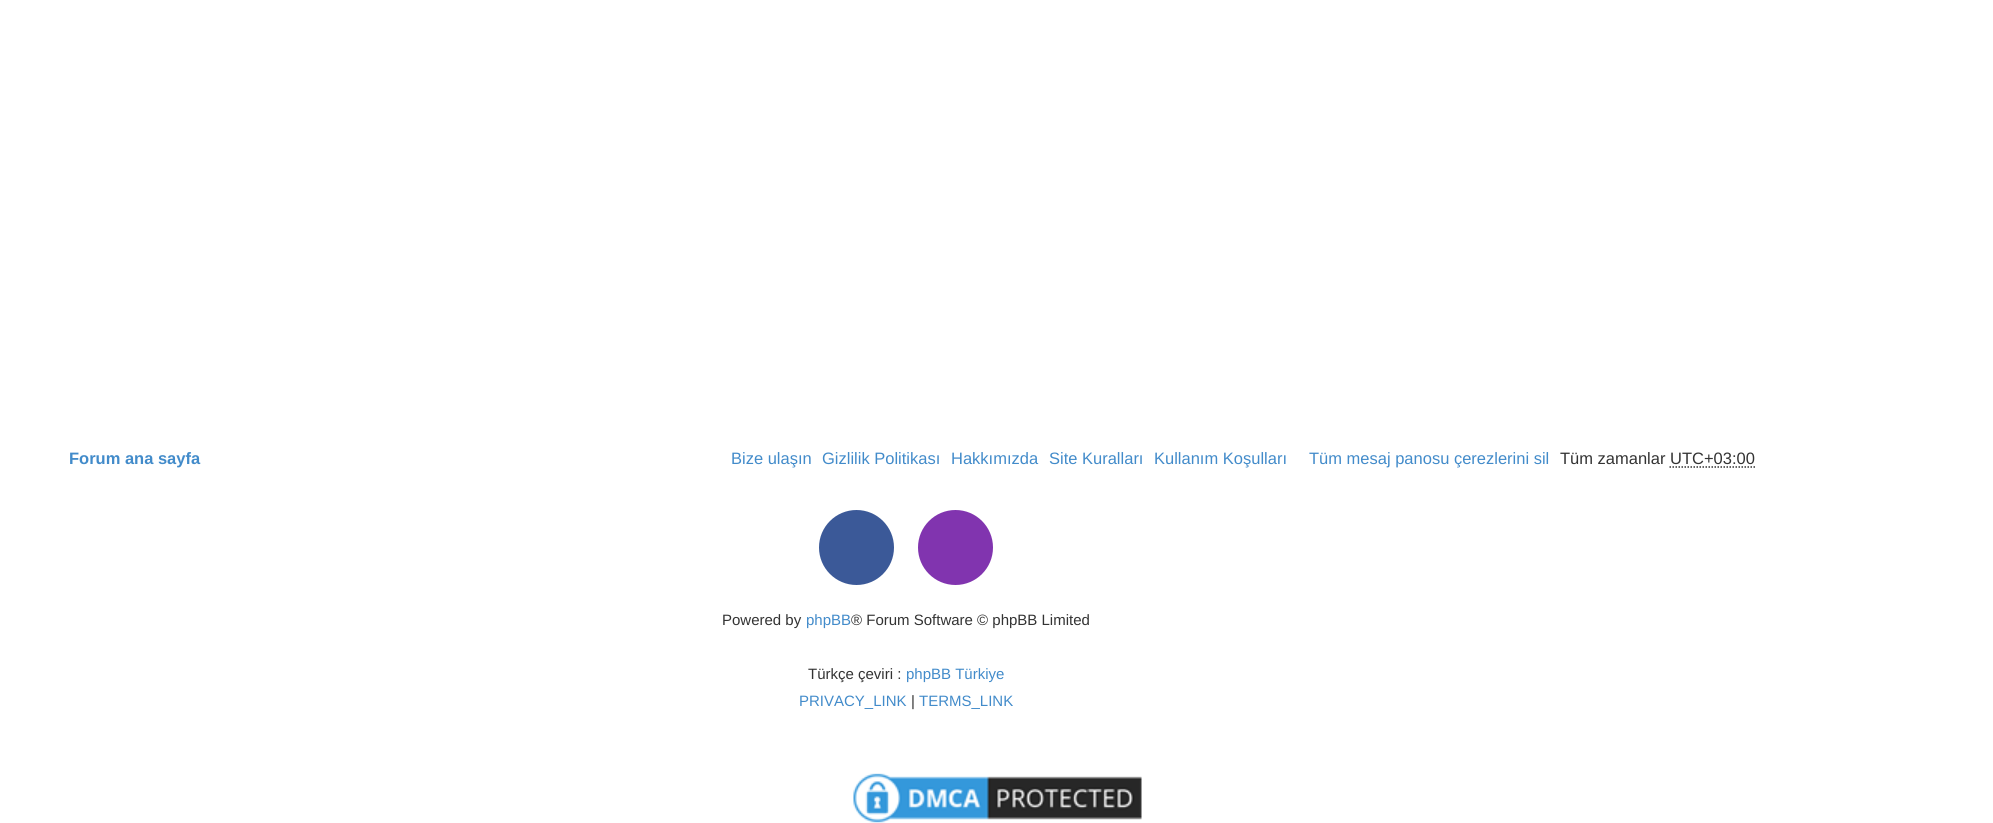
import math
import cairo



def draw_image(context, path, x, y, w, h):
    context.save()
    context.set_source_surface(cairo.ImageSurface.create_from_png(path), x, y)
    context.rectangle(x, y, w, h)
    context.fill()
    context.restore()


def draw(context):
    context.set_source_rgb(1, 1, 1)
    context.paint()
    context.new_path()
    context.move_to(1669.5, 467)
    context.line_to(1755, 467)
    context.set_source_rgb(51 / 255, 51 / 255, 51 / 255)
    context.set_line_width(1.5)
    context.set_dash([1.5, 1.5])
    context.stroke()
    context.set_source_rgb(59 / 255, 89 / 255, 152 / 255)
    context.arc(856.5, 547.5, 37.5, 0, 2 * math.pi)
    context.fill()
    context.set_source_rgb(129 / 255, 52 / 255, 175 / 255)
    context.arc(955.5, 547.5, 37.5, 0, 2 * math.pi)
    context.fill()
    draw_image(context, "images/1.png", 853, 773, 289, 50)
    context.select_font_face("Liberation Sans", cairo.FontSlant.NORMAL, cairo.FontWeight.BOLD)
    context.set_font_size(16.5)
    context.set_source_rgb(66 / 255, 139 / 255, 202 / 255)
    context.move_to(69, 464)
    context.show_text("Forum ana sayfa")
    context.select_font_face("Liberation Sans")
    context.move_to(731, 464)
    context.show_text("Bize ulaşın")
    context.move_to(822, 464)
    context.show_text("Gizlilik Politikası")
    context.move_to(951, 464)
    context.show_text("Hakkımızda")
    context.move_to(1049, 464)
    context.show_text("Site Kuralları")
    context.move_to(1154, 464)
    context.show_text("Kullanım Koşulları")
    context.move_to(1309, 464)
    context.show_text("Tüm mesaj panosu çerezlerini sil")
    context.set_source_rgb(51 / 255, 51 / 255, 51 / 255)
    context.move_to(1560, 464)
    context.show_text("Tüm zamanlar UTC+03:00")
    context.set_font_size(15)
    context.move_to(722, 625)
    context.show_text("Powered by")
    context.set_source_rgb(66 / 255, 139 / 255, 202 / 255)
    context.move_to(806, 625)
    context.show_text("phpBB")
    context.set_source_rgb(51 / 255, 51 / 255, 51 / 255)
    context.move_to(851, 625)
    context.show_text("® Forum Software © phpBB Limited")
    context.move_to(808, 679)
    context.show_text("Türkçe çeviri :")
    context.set_source_rgb(66 / 255, 139 / 255, 202 / 255)
    context.move_to(906, 679)
    context.show_text("phpBB Türkiye")
    context.move_to(799, 706)
    context.show_text("PRIVACY_LINK")
    context.set_source_rgb(51 / 255, 51 / 255, 51 / 255)
    context.move_to(911, 706)
    context.show_text("|")
    context.set_source_rgb(66 / 255, 139 / 255, 202 / 255)
    context.move_to(919, 706)
    context.show_text("TERMS_LINK")


surface = cairo.ImageSurface(cairo.Format.RGB24, 1993, 823)
context = cairo.Context(surface)
options = cairo.FontOptions()
options.set_hint_metrics(cairo.HintMetrics.OFF)
options.set_hint_style(cairo.HintStyle.NONE)
context.set_font_options(options)
context.set_miter_limit(4)
draw(context)
surface.write_to_png("out.png")
